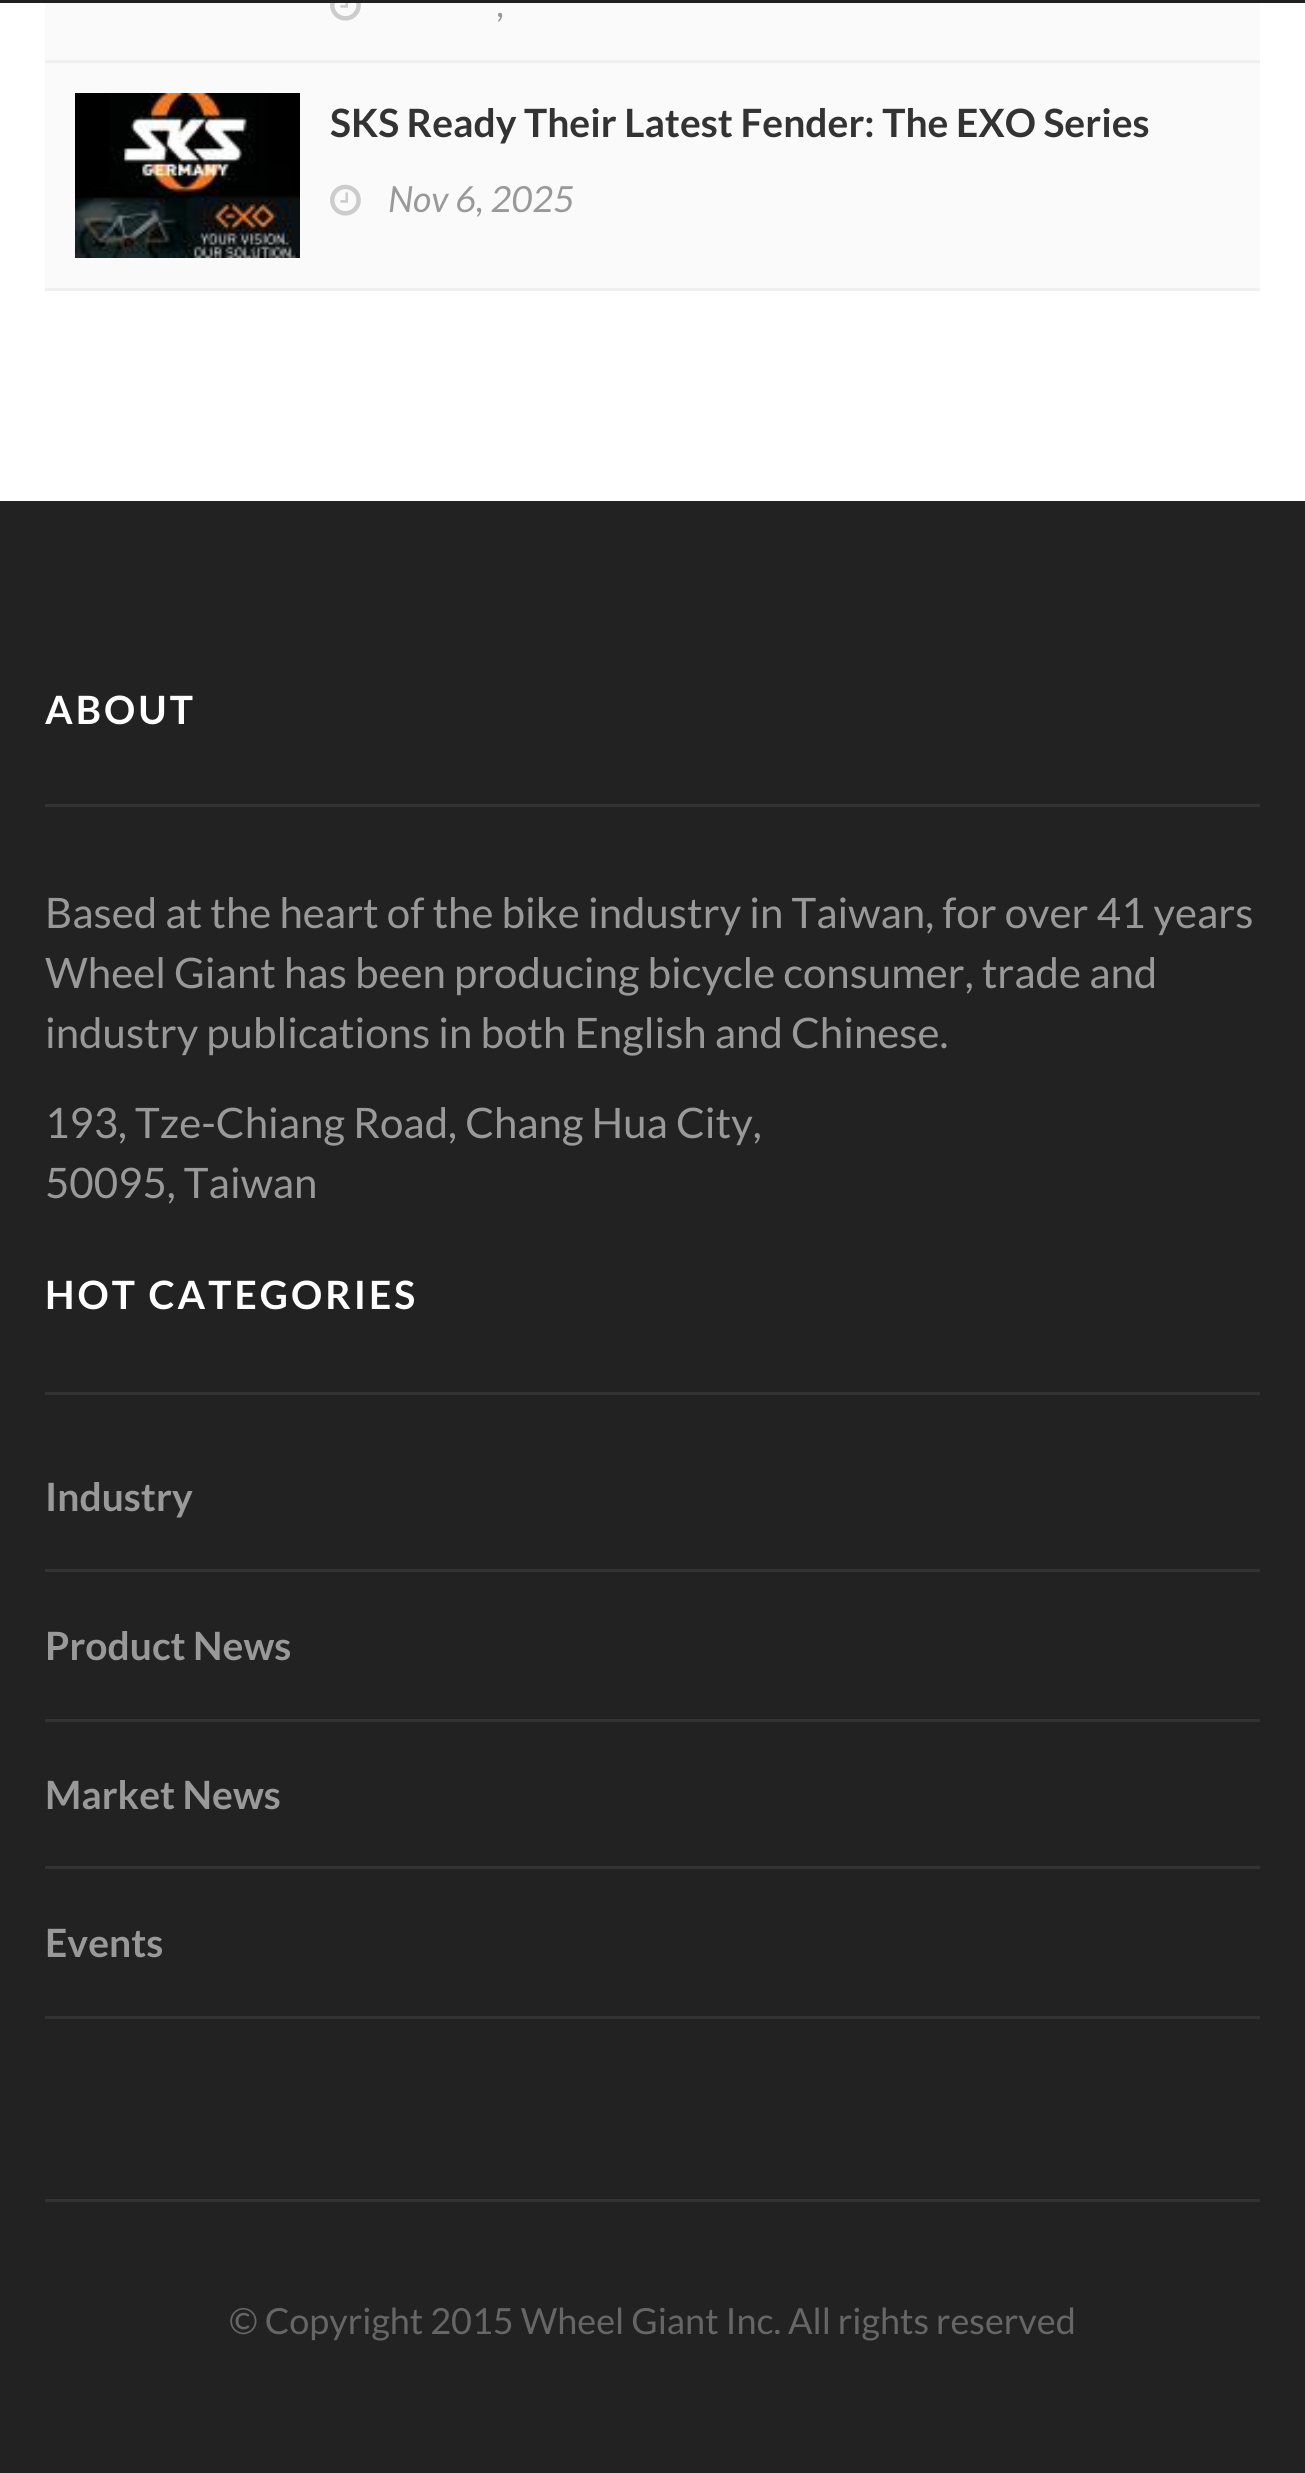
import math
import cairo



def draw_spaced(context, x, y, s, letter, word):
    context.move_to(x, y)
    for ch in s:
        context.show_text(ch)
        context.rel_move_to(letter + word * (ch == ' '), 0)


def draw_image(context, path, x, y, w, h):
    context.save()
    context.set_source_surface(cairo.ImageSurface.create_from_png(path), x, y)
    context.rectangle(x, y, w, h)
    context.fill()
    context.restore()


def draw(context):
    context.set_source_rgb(1, 1, 1)
    context.paint()
    context.set_source_rgb(32 / 255, 32 / 255, 32 / 255)
    context.rectangle(0, 0, 1305, 3)
    context.fill()
    context.set_source_rgb(250 / 255, 250 / 255, 250 / 255)
    context.rectangle(45, 3, 1215, 285)
    context.fill()
    context.set_source_rgb(240 / 255, 240 / 255, 240 / 255)
    context.rectangle(45, 60, 1215, 3)
    context.fill()
    draw_image(context, "images/1.png", 330, 3, 31, 18)
    context.rectangle(45, 288, 1215, 3)
    context.fill()
    draw_image(context, "images/2.png", 75, 93, 225, 165)
    draw_image(context, "images/3.png", 330, 184, 31, 32)
    context.set_source_rgb(34 / 255, 34 / 255, 34 / 255)
    context.rectangle(0, 501, 1305, 1972)
    context.fill()
    context.set_source_rgb(51 / 255, 51 / 255, 51 / 255)
    context.rectangle(45, 804, 1215, 3)
    context.fill()
    context.rectangle(45, 1392, 1215, 3)
    context.fill()
    context.rectangle(45, 1569, 1215, 3)
    context.fill()
    context.rectangle(45, 1719, 1215, 3)
    context.fill()
    context.rectangle(45, 1866, 1215, 3)
    context.fill()
    context.rectangle(45, 2016, 1215, 3)
    context.fill()
    context.rectangle(45, 2199, 1215, 3)
    context.fill()
    context.select_font_face("Lato", cairo.FontSlant.ITALIC)
    context.set_font_size(36)
    context.set_source_rgb(153 / 255, 153 / 255, 153 / 255)
    context.move_to(497, 17)
    context.show_text(",")
    context.select_font_face("Lato", cairo.FontSlant.NORMAL, cairo.FontWeight.BOLD)
    context.set_font_size(39)
    context.set_source_rgb(51 / 255, 51 / 255, 51 / 255)
    context.move_to(330, 137)
    context.show_text("SKS Ready Their Latest Fender: The EXO Series")
    context.select_font_face("Lato", cairo.FontSlant.ITALIC)
    context.set_font_size(36)
    context.set_source_rgb(153 / 255, 153 / 255, 153 / 255)
    context.move_to(388, 212)
    context.show_text("Nov 6, 2025")
    context.select_font_face("Lato", cairo.FontSlant.NORMAL, cairo.FontWeight.BOLD)
    context.set_font_size(39)
    context.set_source_rgb(1, 1, 1)
    draw_spaced(context, 45, 724, "ABOUT", 3, 0)
    context.select_font_face("Lato")
    context.set_font_size(42)
    context.set_source_rgb(153 / 255, 153 / 255, 153 / 255)
    context.move_to(45, 928)
    context.show_text("Based at the heart of the bike industry in Taiwan, for over 41 years")
    context.move_to(45, 988)
    context.show_text("Wheel Giant has been producing bicycle consumer, trade and")
    context.move_to(45, 1048)
    context.show_text("industry publications in both English and Chinese.")
    context.move_to(45, 1138)
    context.show_text("193, Tze-Chiang Road, Chang Hua City,")
    context.move_to(45, 1198)
    context.show_text("50095, Taiwan")
    context.select_font_face("Lato", cairo.FontSlant.NORMAL, cairo.FontWeight.BOLD)
    context.set_font_size(39)
    context.set_source_rgb(1, 1, 1)
    draw_spaced(context, 45, 1309, "HOT CATEGORIES", 3, 0)
    context.set_source_rgb(153 / 255, 153 / 255, 153 / 255)
    context.move_to(45, 1511)
    context.show_text("Industry")
    context.move_to(45, 1660)
    context.show_text("Product News")
    context.move_to(45, 1809)
    context.show_text("Market News")
    context.move_to(45, 1957)
    context.show_text("Events")
    context.select_font_face("Lato")
    context.set_font_size(36)
    context.set_source_rgb(102 / 255, 102 / 255, 102 / 255)
    context.move_to(229, 2334)
    context.show_text("© Copyright 2015 Wheel Giant Inc. All rights reserved")


surface = cairo.ImageSurface(cairo.Format.RGB24, 1305, 2473)
context = cairo.Context(surface)
options = cairo.FontOptions()
options.set_hint_metrics(cairo.HintMetrics.OFF)
options.set_hint_style(cairo.HintStyle.NONE)
context.set_font_options(options)
context.set_miter_limit(4)
draw(context)
surface.write_to_png("out.png")
